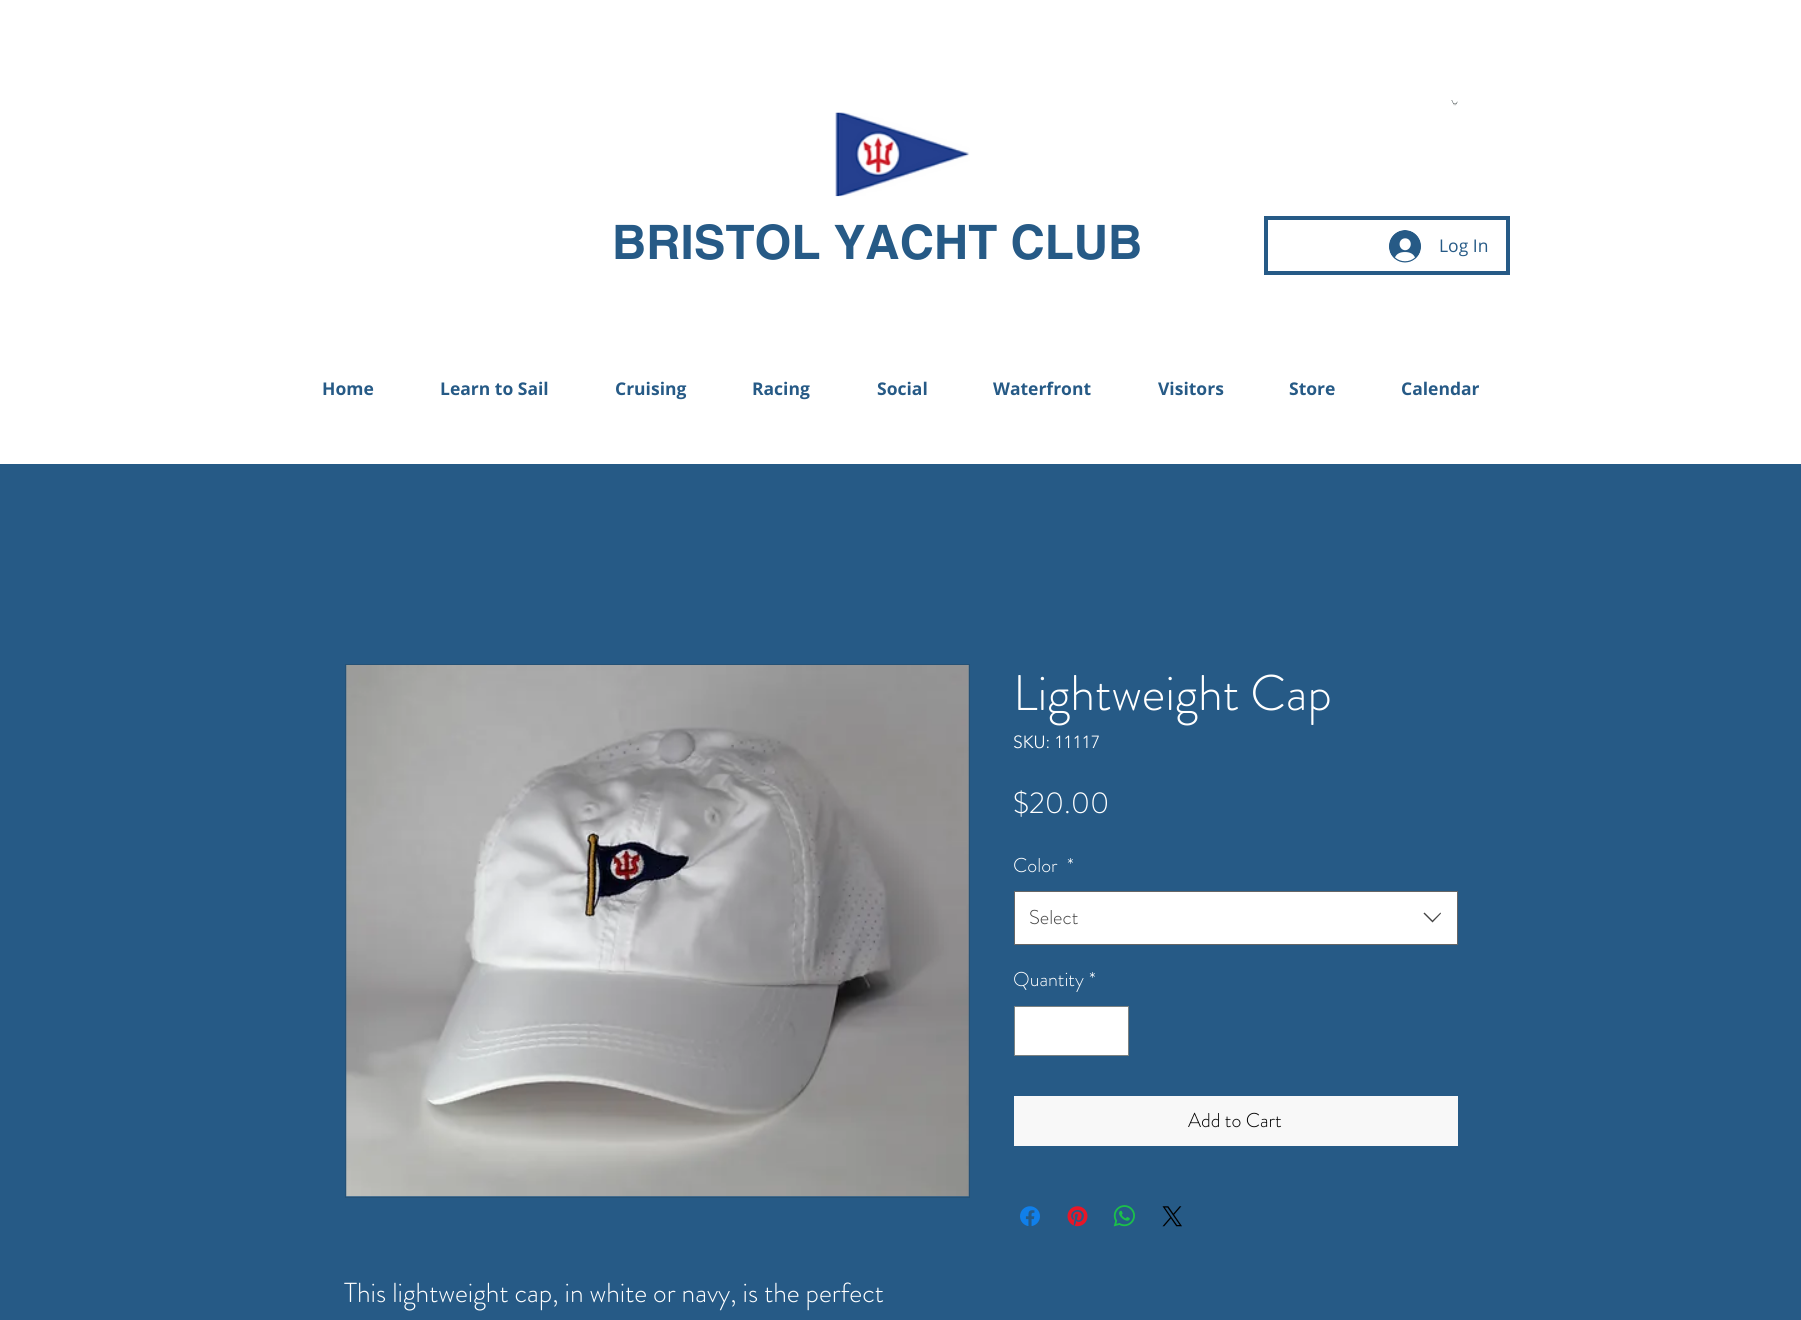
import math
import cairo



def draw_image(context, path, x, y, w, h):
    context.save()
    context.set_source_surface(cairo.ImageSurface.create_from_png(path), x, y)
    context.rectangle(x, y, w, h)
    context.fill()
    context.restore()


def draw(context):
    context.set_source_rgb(1, 1, 1)
    context.paint()
    draw_image(context, "images/1.png", 1451, 100, 7, 6)
    draw_image(context, "images/2.png", 835, 112, 135, 85)
    context.rectangle(1266, 218, 242, 55)
    context.set_source_rgb(38 / 255, 90 / 255, 134 / 255)
    context.set_line_width(4)
    context.stroke()
    draw_image(context, "images/3.png", 1389, 230, 32, 33)
    context.rectangle(0, 464, 1801, 856)
    context.fill()
    context.set_source_rgb(1, 1, 1)
    context.rectangle(1014.5, 891.5, 443, 53)
    context.fill_preserve()
    context.set_source_rgb(102 / 255, 102 / 255, 102 / 255)
    context.set_line_width(1)
    context.stroke()
    context.set_source_rgb(68 / 255, 68 / 255, 68 / 255)
    context.set_fill_rule(cairo.FillRule.EVEN_ODD)
    context.new_path()
    context.move_to(1440.5, 912.5)
    context.line_to(1441, 913.5)
    context.line_to(1432.5, 922.5)
    context.line_to(1423.5, 913.5)
    context.line_to(1424.5, 912.5)
    context.line_to(1432.5, 920.5)
    context.close_path()
    context.fill()
    context.set_source_rgb(1, 1, 1)
    context.rectangle(1014.5, 1006.5, 114, 49)
    context.fill_preserve()
    context.set_source_rgb(123 / 255, 130 / 255, 130 / 255)
    context.stroke()
    context.set_source_rgb(248 / 255, 248 / 255, 248 / 255)
    context.rectangle(1014, 1096, 444, 50)
    context.fill()
    draw_image(context, "images/4.png", 1020, 1206, 20, 20)
    draw_image(context, "images/5.png", 1067, 1206, 21, 21)
    draw_image(context, "images/6.png", 1113, 1205, 22, 22)
    draw_image(context, "images/7.png", 1162, 1206, 20, 21)
    context.rectangle(345.5, 664.5, 624, 533)
    context.set_source_rgb(37 / 255, 81 / 255, 117 / 255)
    context.stroke()
    draw_image(context, "images/8.png", 346, 665, 623, 532)
    context.select_font_face("helvetica", cairo.FontSlant.NORMAL, cairo.FontWeight.BOLD)
    context.set_font_size(47.5)
    context.set_source_rgb(38 / 255, 90 / 255, 134 / 255)
    context.move_to(612, 259)
    context.show_text("BRISTOL YACHT CLUB")
    context.select_font_face("Open Sans")
    context.set_font_size(17.5)
    context.move_to(1439, 252)
    context.show_text("Log In")
    context.select_font_face("Open Sans", cairo.FontSlant.NORMAL, cairo.FontWeight.BOLD)
    context.move_to(322, 395)
    context.show_text("Home")
    context.move_to(440, 395)
    context.show_text("Learn to Sail")
    context.move_to(615, 395)
    context.show_text("Cruising")
    context.move_to(752, 395)
    context.show_text("Racing")
    context.move_to(877, 395)
    context.show_text("Social")
    context.move_to(993, 395)
    context.show_text("Waterfront")
    context.move_to(1158, 395)
    context.show_text("Visitors")
    context.move_to(1289, 395)
    context.show_text("Store")
    context.move_to(1401, 395)
    context.show_text("Calendar")
    context.select_font_face("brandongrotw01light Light")
    context.set_font_size(50)
    context.set_source_rgb(1, 1, 1)
    context.move_to(1013, 710)
    context.show_text("Lightweight Cap")
    context.select_font_face("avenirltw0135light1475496 Light")
    context.set_font_size(17.5)
    context.move_to(1013, 748)
    context.show_text("SKU: 11117")
    context.select_font_face("brandongrotw01light Light")
    context.set_font_size(30)
    context.move_to(1013, 813)
    context.show_text("$20.00")
    context.set_font_size(20)
    context.move_to(1013, 872)
    context.show_text("Color")
    context.move_to(1067, 872)
    context.show_text("*")
    context.set_source_rgb(68 / 255, 68 / 255, 68 / 255)
    context.move_to(1029, 924)
    context.show_text("Select")
    context.set_source_rgb(1, 1, 1)
    context.move_to(1013, 986)
    context.show_text("Quantity")
    context.move_to(1089, 986)
    context.show_text("*")
    context.set_source_rgb(0, 0, 0)
    context.move_to(1188, 1127)
    context.show_text("Add to Cart")
    context.set_font_size(27.5)
    context.set_source_rgb(1, 1, 1)
    context.move_to(344, 1302)
    context.show_text("This lightweight cap, in white or navy, is the perfect")


surface = cairo.ImageSurface(cairo.Format.RGB24, 1801, 1320)
context = cairo.Context(surface)
options = cairo.FontOptions()
options.set_hint_metrics(cairo.HintMetrics.OFF)
options.set_hint_style(cairo.HintStyle.NONE)
context.set_font_options(options)
context.set_miter_limit(4)
draw(context)
surface.write_to_png("out.png")
